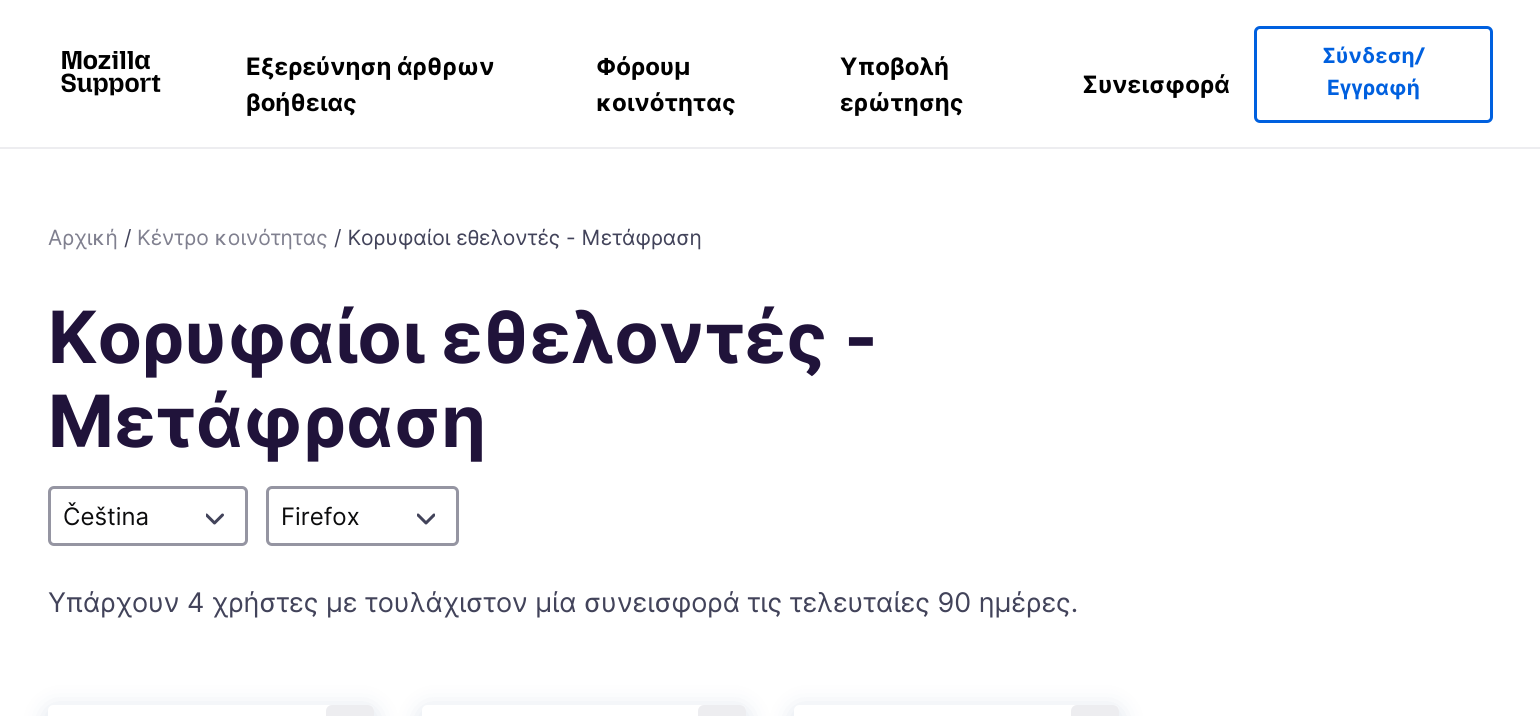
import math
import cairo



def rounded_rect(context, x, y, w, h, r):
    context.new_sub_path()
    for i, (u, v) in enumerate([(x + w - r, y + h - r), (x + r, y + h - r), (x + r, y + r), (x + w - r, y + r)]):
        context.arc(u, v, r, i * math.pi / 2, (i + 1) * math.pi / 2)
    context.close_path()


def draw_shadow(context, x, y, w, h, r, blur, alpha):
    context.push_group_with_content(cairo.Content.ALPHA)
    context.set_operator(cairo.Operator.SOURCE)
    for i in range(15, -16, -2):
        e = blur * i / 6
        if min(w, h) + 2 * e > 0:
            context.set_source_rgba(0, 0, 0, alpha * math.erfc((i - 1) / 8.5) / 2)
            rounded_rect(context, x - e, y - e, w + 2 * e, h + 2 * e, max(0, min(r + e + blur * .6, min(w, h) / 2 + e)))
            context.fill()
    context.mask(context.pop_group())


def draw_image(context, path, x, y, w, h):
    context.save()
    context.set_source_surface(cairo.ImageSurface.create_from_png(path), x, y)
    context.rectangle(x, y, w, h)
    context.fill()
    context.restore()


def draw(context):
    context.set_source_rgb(1, 1, 1)
    context.paint()
    context.set_source_rgb(237 / 255, 237 / 255, 240 / 255)
    context.rectangle(0, 147, 1540, 2)
    context.fill()
    draw_image(context, "images/1.png", 61, 51, 100, 45)
    rounded_rect(context, 1255.5, 27.5, 236, 94, 4.5)
    context.set_source_rgb(0, 96 / 255, 223 / 255)
    context.set_line_width(3)
    context.stroke()
    context.save()
    context.rectangle(206, 510, 18, 18)
    context.clip()
    context.new_path()
    context.move_to(206.5, 515)
    context.line_to(214.5, 523)
    context.line_to(222.5, 515)
    context.set_source_rgb(66 / 255, 67 / 255, 90 / 255)
    context.set_line_cap(cairo.LineCap.ROUND)
    context.set_line_join(cairo.LineJoin.ROUND)
    context.stroke()
    context.restore()
    rounded_rect(context, 49.5, 487.5, 197, 57, 4.5)
    context.set_source_rgb(149 / 255, 149 / 255, 162 / 255)
    context.stroke()
    context.save()
    context.rectangle(417, 510, 18, 18)
    context.clip()
    context.new_path()
    context.move_to(418, 515)
    context.line_to(426, 523)
    context.line_to(434, 515)
    context.set_source_rgb(66 / 255, 67 / 255, 90 / 255)
    context.set_line_cap(cairo.LineCap.ROUND)
    context.set_line_join(cairo.LineJoin.ROUND)
    context.stroke()
    context.restore()
    rounded_rect(context, 267.5, 487.5, 190, 57, 4.5)
    context.stroke()
    context.save()
    context.set_fill_rule(cairo.FillRule.EVEN_ODD)
    context.new_path()
    context.move_to(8, 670)
    context.line_to(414, 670)
    context.line_to(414, 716)
    context.line_to(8, 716)
    context.close_path()
    context.move_to(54, 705)
    context.line_to(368, 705)
    context.curve_to(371.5, 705, 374, 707.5, 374, 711)
    context.line_to(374, 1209)
    context.curve_to(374, 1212.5, 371.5, 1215, 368, 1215)
    context.line_to(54, 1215)
    context.curve_to(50.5, 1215, 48, 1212.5, 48, 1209)
    context.line_to(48, 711)
    context.curve_to(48, 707.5, 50.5, 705, 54, 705)
    context.close_path()
    context.clip()
    context.set_source_rgb(7 / 255, 48 / 255, 114 / 255)
    draw_shadow(context, 45, 707, 332, 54, 9, 12, 0.12)
    context.restore()
    context.set_source_rgb(237 / 255, 237 / 255, 240 / 255)
    rounded_rect(context, 326, 705, 48, 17, 6)
    context.fill()
    context.save()
    context.set_fill_rule(cairo.FillRule.EVEN_ODD)
    context.new_path()
    context.move_to(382, 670)
    context.line_to(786, 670)
    context.line_to(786, 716)
    context.line_to(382, 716)
    context.close_path()
    context.move_to(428, 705)
    context.line_to(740, 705)
    context.curve_to(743.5, 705, 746, 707.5, 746, 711)
    context.line_to(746, 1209)
    context.curve_to(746, 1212.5, 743.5, 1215, 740, 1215)
    context.line_to(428, 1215)
    context.curve_to(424.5, 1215, 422, 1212.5, 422, 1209)
    context.line_to(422, 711)
    context.curve_to(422, 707.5, 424.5, 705, 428, 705)
    context.close_path()
    context.clip()
    context.set_source_rgb(7 / 255, 48 / 255, 114 / 255)
    draw_shadow(context, 419, 707, 330, 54, 9, 12, 0.12)
    context.restore()
    rounded_rect(context, 698, 705, 48, 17, 6)
    context.fill()
    context.save()
    context.set_fill_rule(cairo.FillRule.EVEN_ODD)
    context.new_path()
    context.move_to(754, 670)
    context.line_to(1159, 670)
    context.line_to(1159, 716)
    context.line_to(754, 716)
    context.close_path()
    context.move_to(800, 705)
    context.line_to(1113, 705)
    context.curve_to(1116.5, 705, 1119, 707.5, 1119, 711)
    context.line_to(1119, 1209)
    context.curve_to(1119, 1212.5, 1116.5, 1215, 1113, 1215)
    context.line_to(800, 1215)
    context.curve_to(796.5, 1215, 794, 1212.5, 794, 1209)
    context.line_to(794, 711)
    context.curve_to(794, 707.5, 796.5, 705, 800, 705)
    context.close_path()
    context.clip()
    context.set_source_rgb(7 / 255, 48 / 255, 114 / 255)
    draw_shadow(context, 791, 707, 331, 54, 9, 12, 0.12)
    context.restore()
    rounded_rect(context, 1071, 705, 48, 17, 6)
    context.fill()
    context.select_font_face("Inter", cairo.FontSlant.NORMAL, cairo.FontWeight.BOLD)
    context.set_font_size(24)
    context.set_source_rgb(0, 0, 0)
    context.move_to(246, 75)
    context.show_text("Εξερεύνηση άρθρων")
    context.move_to(246, 111)
    context.show_text("βοήθειας")
    context.move_to(596, 75)
    context.show_text("Φόρουμ")
    context.move_to(596, 111)
    context.show_text("κοινότητας")
    context.move_to(840, 75)
    context.show_text("Υποβολή")
    context.move_to(840, 111)
    context.show_text("ερώτησης")
    context.move_to(1082, 93)
    context.show_text("Συνεισφορά")
    context.set_font_size(21)
    context.set_source_rgb(0, 96 / 255, 223 / 255)
    context.move_to(1322, 63)
    context.show_text("Σύνδεση")
    context.select_font_face("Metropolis", cairo.FontSlant.NORMAL, cairo.FontWeight.BOLD)
    context.move_to(1415, 63)
    context.show_text("/")
    context.select_font_face("Inter", cairo.FontSlant.NORMAL, cairo.FontWeight.BOLD)
    context.move_to(1327, 95)
    context.show_text("Εγγραφή")
    context.select_font_face("Inter")
    context.set_source_rgb(128 / 255, 128 / 255, 143 / 255)
    context.move_to(48, 245)
    context.show_text("Αρχική")
    context.set_source_rgb(66 / 255, 67 / 255, 90 / 255)
    context.move_to(124, 245)
    context.show_text("/")
    context.set_source_rgb(128 / 255, 128 / 255, 143 / 255)
    context.move_to(137, 245)
    context.show_text("Κέντρο κοινότητας")
    context.set_source_rgb(66 / 255, 67 / 255, 90 / 255)
    context.move_to(334, 245)
    context.show_text("/ Κορυφαίοι εθελοντές - Μετάφραση")
    context.select_font_face("Inter", cairo.FontSlant.NORMAL, cairo.FontWeight.BOLD)
    context.set_font_size(72)
    context.set_source_rgb(32 / 255, 19 / 255, 58 / 255)
    context.move_to(48, 363)
    context.show_text("Κορυφαίοι εθελοντές -")
    context.move_to(48, 447)
    context.show_text("Μετάφραση")
    context.select_font_face("Inter")
    context.set_font_size(24)
    context.set_source_rgb(12 / 255, 12 / 255, 13 / 255)
    context.move_to(63, 525)
    context.show_text("Čeština")
    context.move_to(281, 525)
    context.show_text("Firefox")
    context.set_font_size(27)
    context.set_source_rgb(66 / 255, 67 / 255, 90 / 255)
    context.move_to(48, 612)
    context.show_text("Υπάρχουν 4 χρήστες με τουλάχιστον μία συνεισφορά τις τελευταίες 90 ημέρες.")


surface = cairo.ImageSurface(cairo.Format.RGB24, 1540, 716)
context = cairo.Context(surface)
options = cairo.FontOptions()
options.set_hint_metrics(cairo.HintMetrics.OFF)
options.set_hint_style(cairo.HintStyle.NONE)
context.set_font_options(options)
context.set_miter_limit(4)
draw(context)
surface.write_to_png("out.png")
